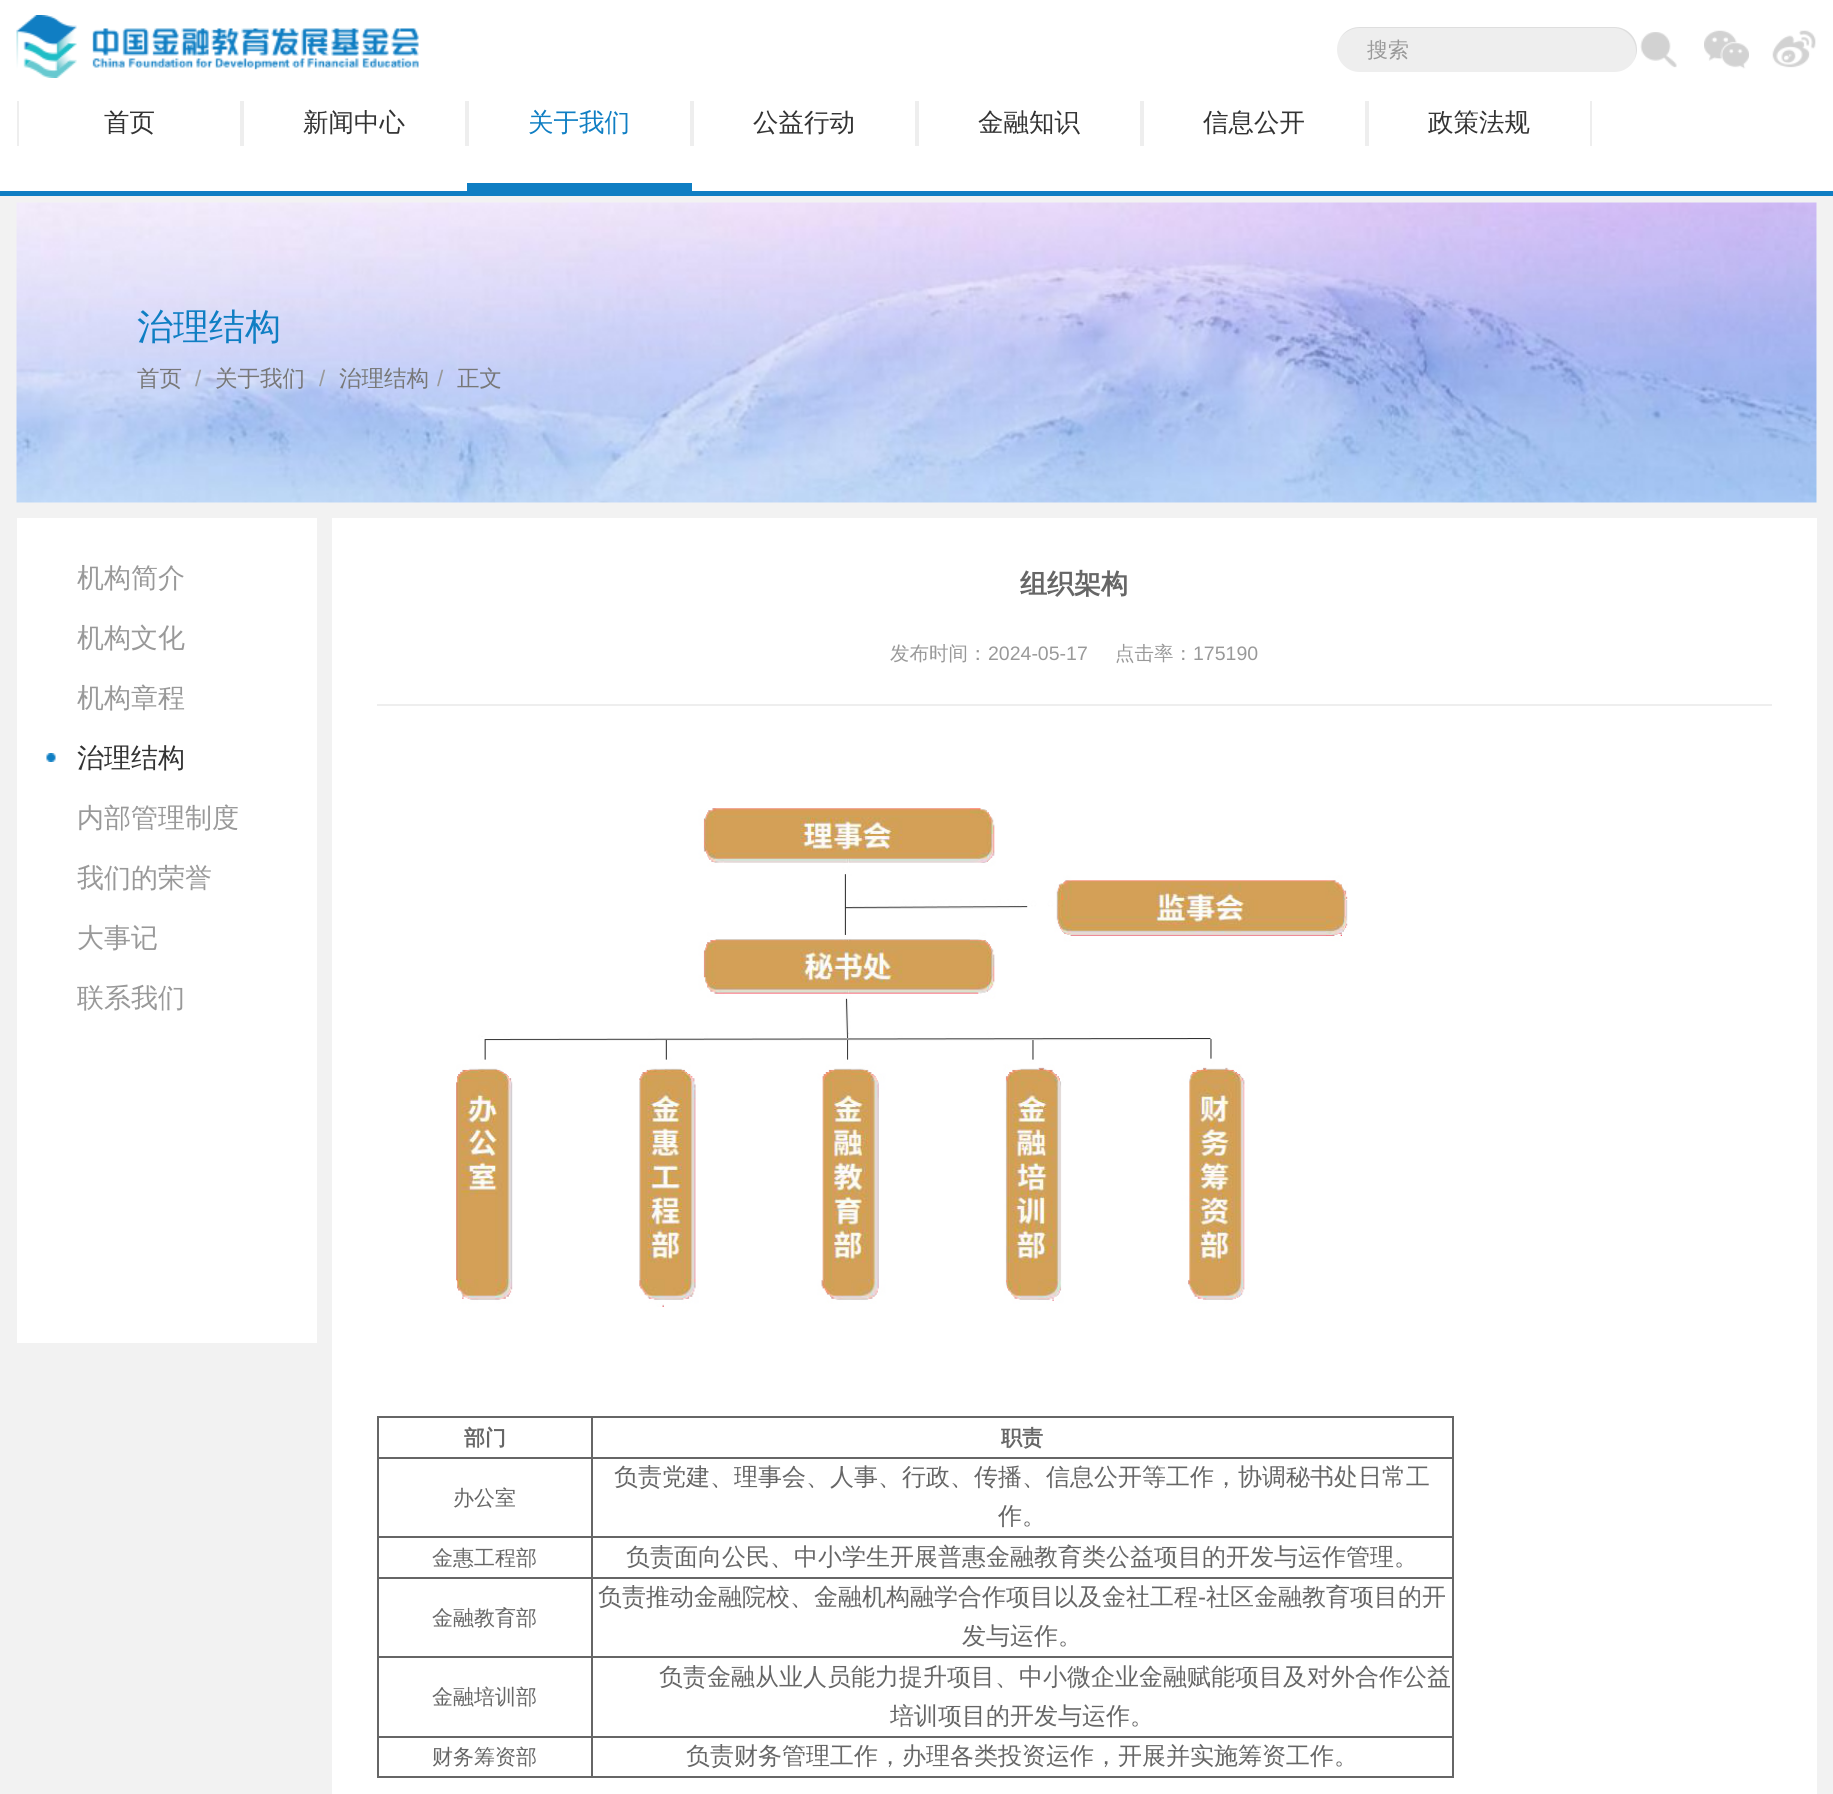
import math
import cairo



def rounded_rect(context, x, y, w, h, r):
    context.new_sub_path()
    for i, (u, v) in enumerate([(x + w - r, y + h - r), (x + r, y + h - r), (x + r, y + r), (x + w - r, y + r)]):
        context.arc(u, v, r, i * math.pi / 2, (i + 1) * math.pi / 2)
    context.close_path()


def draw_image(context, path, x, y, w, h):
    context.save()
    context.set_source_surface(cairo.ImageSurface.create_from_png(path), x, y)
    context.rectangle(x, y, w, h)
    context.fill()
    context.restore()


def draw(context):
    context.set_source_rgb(242 / 255, 242 / 255, 242 / 255)
    context.paint()
    context.set_source_rgb(1, 1, 1)
    context.rectangle(0, 0, 1833, 191)
    context.fill()
    context.set_source_rgb(15 / 255, 126 / 255, 195 / 255)
    context.rectangle(0, 191, 1833, 5)
    context.fill()
    draw_image(context, "images/1.png", 16, 15, 403, 63)
    context.set_source_rgb(238 / 255, 238 / 255, 238 / 255)
    rounded_rect(context, 1337, 27, 300, 45, 22.5)
    context.fill()
    context.set_source_rgba(0, 0, 0, 0.07)
    context.new_path()
    context.move_to(1359, 28)
    context.line_to(1614, 28)
    context.curve_to(1626, 28, 1636, 39, 1636, 51)
    context.curve_to(1636, 55, 1635, 59, 1633, 63)
    context.curve_to(1635, 59, 1637, 54, 1637, 50)
    context.curve_to(1637, 37, 1627, 27, 1614, 27)
    context.line_to(1360, 27)
    context.curve_to(1350, 27, 1343, 32, 1339, 40)
    context.curve_to(1343, 33, 1351, 28, 1359, 28)
    context.close_path()
    context.fill()
    draw_image(context, "images/2.png", 1640, 32, 37, 36)
    draw_image(context, "images/3.png", 1704, 30, 45, 39)
    draw_image(context, "images/4.png", 1772, 30, 44, 38)
    context.set_source_rgb(238 / 255, 238 / 255, 238 / 255)
    context.rectangle(240, 101, 4, 45)
    context.fill()
    context.rectangle(17, 101, 2, 45)
    context.fill()
    context.rectangle(465, 101, 4, 45)
    context.fill()
    context.set_source_rgb(15 / 255, 126 / 255, 195 / 255)
    context.rectangle(467, 183, 225, 8)
    context.fill()
    context.set_source_rgb(238 / 255, 238 / 255, 238 / 255)
    context.rectangle(690, 101, 4, 45)
    context.fill()
    context.rectangle(915, 101, 4, 45)
    context.fill()
    context.rectangle(1140, 101, 4, 45)
    context.fill()
    context.rectangle(1365, 101, 4, 45)
    context.fill()
    context.rectangle(1590, 101, 2, 45)
    context.fill()
    draw_image(context, "images/5.png", 16, 202, 1801, 301)
    context.set_source_rgb(1, 1, 1)
    context.rectangle(17, 518, 300, 825)
    context.fill()
    draw_image(context, "images/6.png", 46, 753, 10, 9)
    context.rectangle(332, 518, 1485, 1276)
    context.fill()
    context.set_source_rgb(238 / 255, 238 / 255, 238 / 255)
    context.rectangle(377, 704, 1395, 2)
    context.fill()
    draw_image(context, "images/7.png", 456, 808, 892, 499)
    context.set_source_rgb(102 / 255, 102 / 255, 102 / 255)
    context.rectangle(591, 1416, 863, 2)
    context.fill()
    context.rectangle(591, 1457, 863, 2)
    context.fill()
    context.rectangle(591, 1536, 863, 2)
    context.fill()
    context.rectangle(591, 1577, 863, 2)
    context.fill()
    context.rectangle(591, 1656, 863, 2)
    context.fill()
    context.rectangle(591, 1736, 863, 2)
    context.fill()
    context.rectangle(1452, 1736, 2, 42)
    context.fill()
    context.rectangle(591, 1776, 863, 2)
    context.fill()
    context.rectangle(591, 1736, 2, 42)
    context.fill()
    context.rectangle(377, 1736, 216, 2)
    context.fill()
    context.rectangle(591, 1656, 2, 81)
    context.fill()
    context.rectangle(377, 1656, 216, 2)
    context.fill()
    context.rectangle(591, 1577, 2, 81)
    context.fill()
    context.rectangle(377, 1577, 216, 2)
    context.fill()
    context.rectangle(591, 1536, 2, 42)
    context.fill()
    context.rectangle(377, 1536, 216, 2)
    context.fill()
    context.rectangle(591, 1457, 2, 81)
    context.fill()
    context.rectangle(377, 1457, 216, 2)
    context.fill()
    context.rectangle(591, 1416, 2, 42)
    context.fill()
    context.rectangle(377, 1416, 216, 2)
    context.fill()
    context.rectangle(377, 1776, 216, 2)
    context.fill()
    context.rectangle(377, 1736, 2, 42)
    context.fill()
    context.rectangle(377, 1656, 2, 81)
    context.fill()
    context.rectangle(377, 1577, 2, 81)
    context.fill()
    context.rectangle(377, 1536, 2, 42)
    context.fill()
    context.rectangle(377, 1457, 2, 81)
    context.fill()
    context.rectangle(377, 1416, 2, 42)
    context.fill()
    context.rectangle(1452, 1656, 2, 81)
    context.fill()
    context.rectangle(1452, 1577, 2, 81)
    context.fill()
    context.rectangle(1452, 1536, 2, 42)
    context.fill()
    context.rectangle(1452, 1457, 2, 81)
    context.fill()
    context.rectangle(1452, 1416, 2, 42)
    context.fill()
    context.select_font_face("WenQuanYi Zen Hei Medium")
    context.set_font_size(21)
    context.set_source_rgb(153 / 255, 153 / 255, 153 / 255)
    context.move_to(1367, 57)
    context.show_text("搜索")
    context.set_font_size(25.5)
    context.set_source_rgb(51 / 255, 51 / 255, 51 / 255)
    context.move_to(104, 131)
    context.show_text("首页")
    context.move_to(303, 131)
    context.show_text("新闻中心")
    context.set_source_rgb(15 / 255, 126 / 255, 195 / 255)
    context.move_to(528, 131)
    context.show_text("关于我们")
    context.set_source_rgb(51 / 255, 51 / 255, 51 / 255)
    context.move_to(753, 131)
    context.show_text("公益行动")
    context.move_to(978, 131)
    context.show_text("金融知识")
    context.move_to(1203, 131)
    context.show_text("信息公开")
    context.move_to(1428, 131)
    context.show_text("政策法规")
    context.set_font_size(36)
    context.set_source_rgb(15 / 255, 126 / 255, 195 / 255)
    context.move_to(137, 339)
    context.show_text("治理结构")
    context.set_font_size(22.5)
    context.set_source_rgb(119 / 255, 119 / 255, 119 / 255)
    context.move_to(137, 386)
    context.show_text("首页")
    context.select_font_face("Liberation Sans")
    context.set_source_rgb(153 / 255, 153 / 255, 153 / 255)
    context.move_to(195, 386)
    context.show_text("/")
    context.select_font_face("WenQuanYi Zen Hei Medium")
    context.set_source_rgb(119 / 255, 119 / 255, 119 / 255)
    context.move_to(215, 386)
    context.show_text("关于我们")
    context.select_font_face("Liberation Sans")
    context.set_source_rgb(153 / 255, 153 / 255, 153 / 255)
    context.move_to(319, 386)
    context.show_text("/")
    context.select_font_face("WenQuanYi Zen Hei Medium")
    context.set_source_rgb(119 / 255, 119 / 255, 119 / 255)
    context.move_to(339, 386)
    context.show_text("治理结构")
    context.select_font_face("Liberation Sans")
    context.set_source_rgb(153 / 255, 153 / 255, 153 / 255)
    context.move_to(437, 386)
    context.show_text("/")
    context.select_font_face("WenQuanYi Zen Hei Medium")
    context.set_source_rgb(119 / 255, 119 / 255, 119 / 255)
    context.move_to(457, 386)
    context.show_text("正文")
    context.set_font_size(27)
    context.set_source_rgb(153 / 255, 153 / 255, 153 / 255)
    context.move_to(77, 587)
    context.show_text("机构简介")
    context.move_to(77, 647)
    context.show_text("机构文化")
    context.move_to(77, 707)
    context.show_text("机构章程")
    context.set_source_rgb(51 / 255, 51 / 255, 51 / 255)
    context.move_to(77, 767)
    context.show_text("治理结构")
    context.set_source_rgb(153 / 255, 153 / 255, 153 / 255)
    context.move_to(77, 827)
    context.show_text("内部管理制度")
    context.move_to(77, 887)
    context.show_text("我们的荣誉")
    context.move_to(77, 947)
    context.show_text("大事记")
    context.move_to(77, 1007)
    context.show_text("联系我们")
    context.select_font_face("WenQuanYi Zen Hei", cairo.FontSlant.NORMAL, cairo.FontWeight.BOLD)
    context.set_source_rgb(102 / 255, 102 / 255, 102 / 255)
    context.move_to(1020, 593)
    context.show_text("组织架构")
    context.select_font_face("WenQuanYi Zen Hei Medium")
    context.set_font_size(19.5)
    context.set_source_rgb(153 / 255, 153 / 255, 153 / 255)
    context.move_to(890, 660)
    context.show_text("发布时间：")
    context.select_font_face("Liberation Sans")
    context.move_to(988, 660)
    context.show_text("2024-05-17")
    context.select_font_face("WenQuanYi Zen Hei Medium")
    context.move_to(1115, 660)
    context.show_text("点击率：")
    context.select_font_face("Liberation Sans")
    context.move_to(1193, 660)
    context.show_text("175190")
    context.select_font_face("WenQuanYi Zen Hei", cairo.FontSlant.NORMAL, cairo.FontWeight.BOLD)
    context.set_font_size(21)
    context.set_source_rgb(102 / 255, 102 / 255, 102 / 255)
    context.move_to(464, 1445)
    context.show_text("部门")
    context.move_to(1001, 1445)
    context.show_text("职责")
    context.select_font_face("WenQuanYi Zen Hei Medium")
    context.move_to(453, 1505)
    context.show_text("办公室")
    context.set_font_size(24)
    context.move_to(614, 1485)
    context.show_text("负责党建、理事会、人事、行政、传播、信息公开等工作，协调秘书处日常工")
    context.move_to(998, 1524)
    context.show_text("作。")
    context.set_font_size(21)
    context.move_to(432, 1565)
    context.show_text("金惠工程部")
    context.set_font_size(24)
    context.move_to(626, 1565)
    context.show_text("负责面向公民、中小学生开展普惠金融教育类公益项目的开发与运作管理。")
    context.set_font_size(21)
    context.move_to(432, 1625)
    context.show_text("金融教育部")
    context.set_font_size(24)
    context.move_to(598, 1605)
    context.show_text("负责推动金融院校、金融机构融学合作项目以及金社工程")
    context.select_font_face("Liberation Sans")
    context.move_to(1198, 1605)
    context.show_text("-")
    context.select_font_face("WenQuanYi Zen Hei Medium")
    context.move_to(1206, 1605)
    context.show_text("社区金融教育项目的开")
    context.move_to(962, 1644)
    context.show_text("发与运作。")
    context.set_font_size(21)
    context.move_to(432, 1704)
    context.show_text("金融培训部")
    context.set_font_size(24)
    context.move_to(659, 1685)
    context.show_text("负责金融从业人员能力提升项目、中小微企业金融赋能项目及对外合作公益")
    context.move_to(890, 1724)
    context.show_text("培训项目的开发与运作。")
    context.set_font_size(21)
    context.move_to(432, 1764)
    context.show_text("财务筹资部")
    context.set_font_size(24)
    context.move_to(686, 1764)
    context.show_text("负责财务管理工作，办理各类投资运作，开展并实施筹资工作。")


surface = cairo.ImageSurface(cairo.Format.RGB24, 1833, 1794)
context = cairo.Context(surface)
options = cairo.FontOptions()
options.set_hint_metrics(cairo.HintMetrics.OFF)
options.set_hint_style(cairo.HintStyle.NONE)
context.set_font_options(options)
context.set_miter_limit(4)
draw(context)
surface.write_to_png("out.png")
